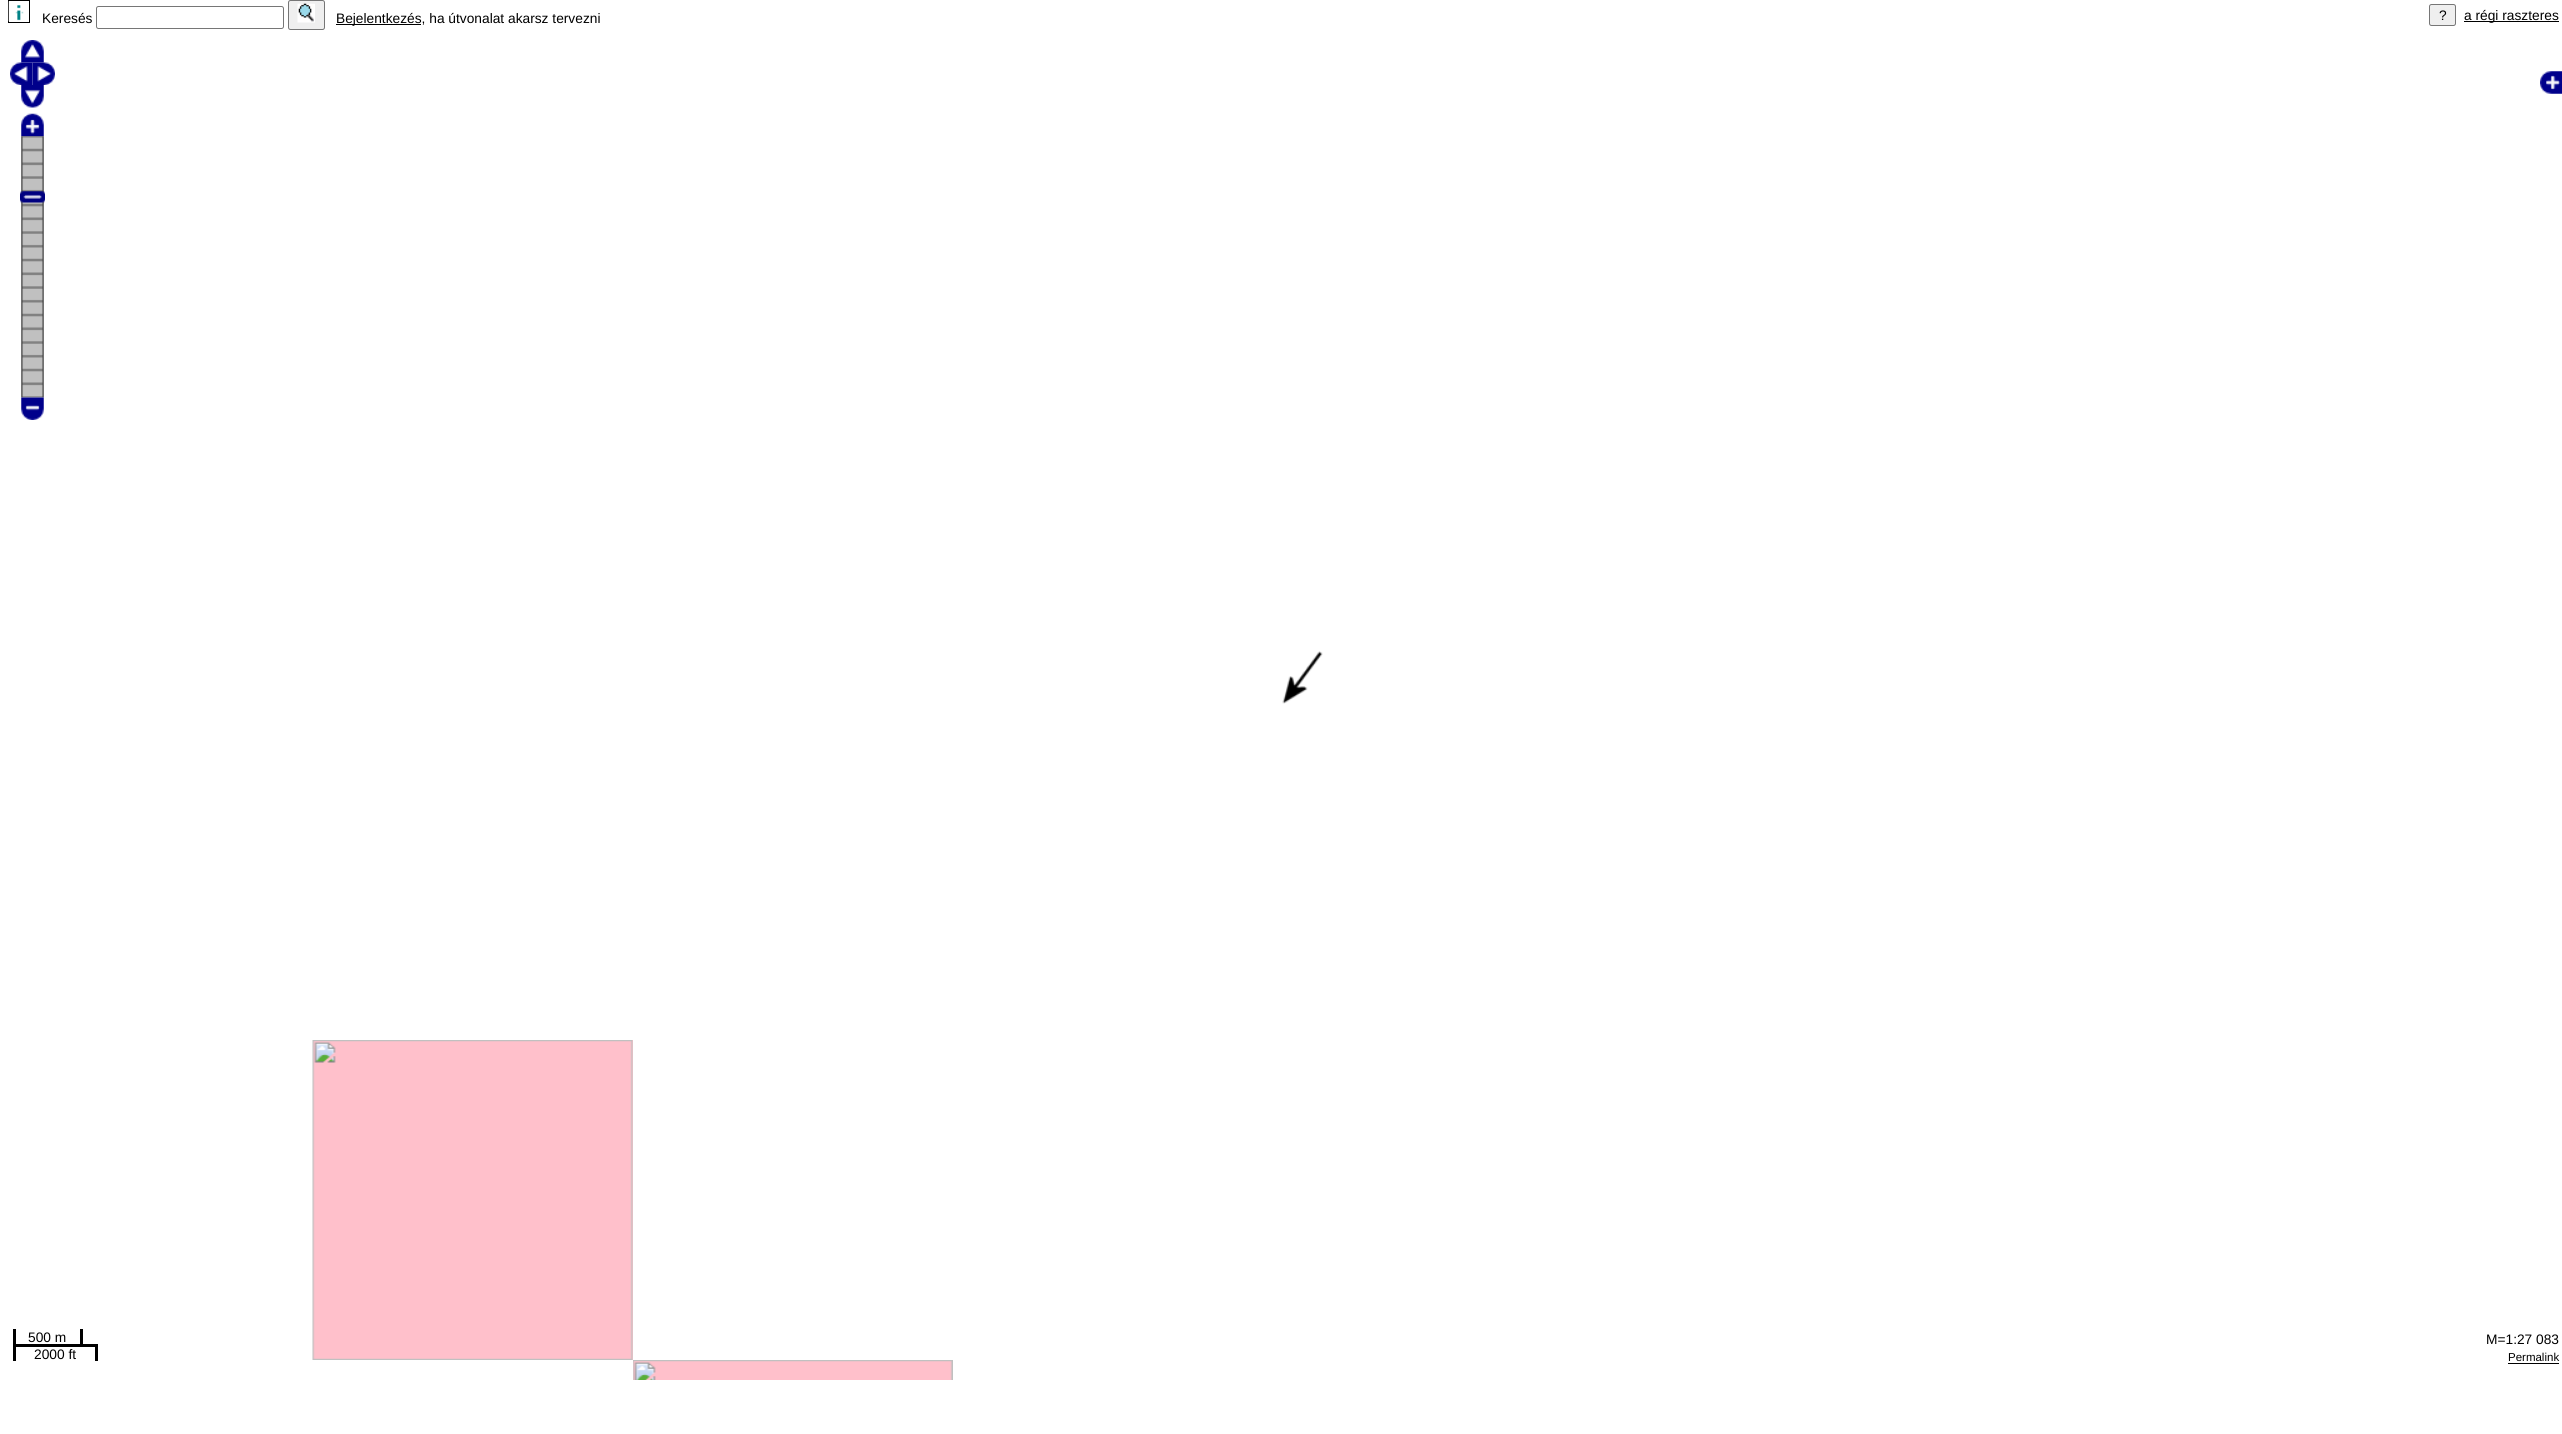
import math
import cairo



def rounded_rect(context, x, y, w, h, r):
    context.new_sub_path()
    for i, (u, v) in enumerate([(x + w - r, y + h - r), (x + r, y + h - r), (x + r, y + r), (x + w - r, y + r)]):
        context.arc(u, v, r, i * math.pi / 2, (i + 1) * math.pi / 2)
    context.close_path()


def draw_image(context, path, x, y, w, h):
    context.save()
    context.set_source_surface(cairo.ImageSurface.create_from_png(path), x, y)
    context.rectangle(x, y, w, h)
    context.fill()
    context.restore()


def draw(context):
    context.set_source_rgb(1, 1, 1)
    context.paint()
    context.rectangle(8.5, 0.5, 21, 22)
    context.set_source_rgb(0, 0, 0)
    context.set_line_width(1)
    context.stroke()
    draw_image(context, "images/1.png", 8, 1, 16, 21)
    rounded_rect(context, 96.5, 6.5, 187, 22, 2)
    context.set_source_rgb(118 / 255, 118 / 255, 118 / 255)
    context.stroke()
    context.set_source_rgb(239 / 255, 239 / 255, 239 / 255)
    rounded_rect(context, 288.5, 0.5, 36, 29, 2)
    context.fill_preserve()
    context.set_source_rgb(118 / 255, 118 / 255, 118 / 255)
    context.stroke()
    draw_image(context, "images/2.png", 297, 3, 18, 20)
    context.set_source_rgb(0, 0, 0)
    context.rectangle(336, 24, 85, 1)
    context.fill()
    context.set_source_rgb(239 / 255, 239 / 255, 239 / 255)
    rounded_rect(context, 2429.5, 4.5, 26, 21, 2)
    context.fill_preserve()
    context.set_source_rgb(118 / 255, 118 / 255, 118 / 255)
    context.stroke()
    context.set_source_rgb(0, 0, 0)
    context.rectangle(2464, 21, 95, 1)
    context.fill()
    draw_image(context, "images/3.png", 21, 40, 23, 23)
    draw_image(context, "images/4.png", 10, 62, 23, 23)
    draw_image(context, "images/5.png", 32, 62, 23, 23)
    draw_image(context, "images/6.png", 21, 85, 23, 23)
    draw_image(context, "images/7.png", 21, 113, 23, 24)
    draw_image(context, "images/8.png", 21, 136, 23, 262)
    draw_image(context, "images/9.png", 20, 191, 25, 12)
    draw_image(context, "images/10.png", 21, 397, 23, 23)
    draw_image(context, "images/11.png", 2540, 71, 22, 23)
    context.rectangle(80, 1329, 3, 17)
    context.fill()
    context.rectangle(13, 1329, 3, 17)
    context.fill()
    context.rectangle(13, 1344, 85, 3)
    context.fill()
    context.rectangle(95, 1344, 3, 17)
    context.fill()
    context.rectangle(13, 1344, 3, 17)
    context.fill()
    draw_image(context, "images/12.png", 1282, 651, 41, 53)
    context.set_source_rgb(1, 192 / 255, 203 / 255)
    context.rectangle(313, 1040, 320, 320)
    context.fill()
    draw_image(context, "images/13.png", 312, 1040, 321, 320)
    context.rectangle(633, 1361, 319, 19)
    context.fill()
    draw_image(context, "images/14.png", 633, 1360, 320, 20)
    context.set_source_rgb(0, 0, 0)
    context.rectangle(2508, 1363, 51, 1)
    context.fill()
    context.select_font_face("Liberation Sans")
    context.set_font_size(13.75)
    context.move_to(42, 23)
    context.show_text("Keresés")
    context.move_to(336, 23)
    context.show_text("Bejelentkezés, ha útvonalat akarsz tervezni")
    context.move_to(2439, 20)
    context.show_text("?")
    context.move_to(2464, 20)
    context.show_text("a régi raszteres")
    context.move_to(28, 1342)
    context.show_text("500 m")
    context.move_to(34, 1359)
    context.show_text("2000 ft")
    context.move_to(2486, 1344)
    context.show_text("M=1:27 083")
    context.set_font_size(11.5)
    context.move_to(2508, 1361)
    context.show_text("Permalink")


surface = cairo.ImageSurface(cairo.Format.RGB24, 2562, 1434)
context = cairo.Context(surface)
options = cairo.FontOptions()
options.set_hint_metrics(cairo.HintMetrics.OFF)
options.set_hint_style(cairo.HintStyle.NONE)
context.set_font_options(options)
context.set_miter_limit(4)
draw(context)
surface.write_to_png("out.png")
